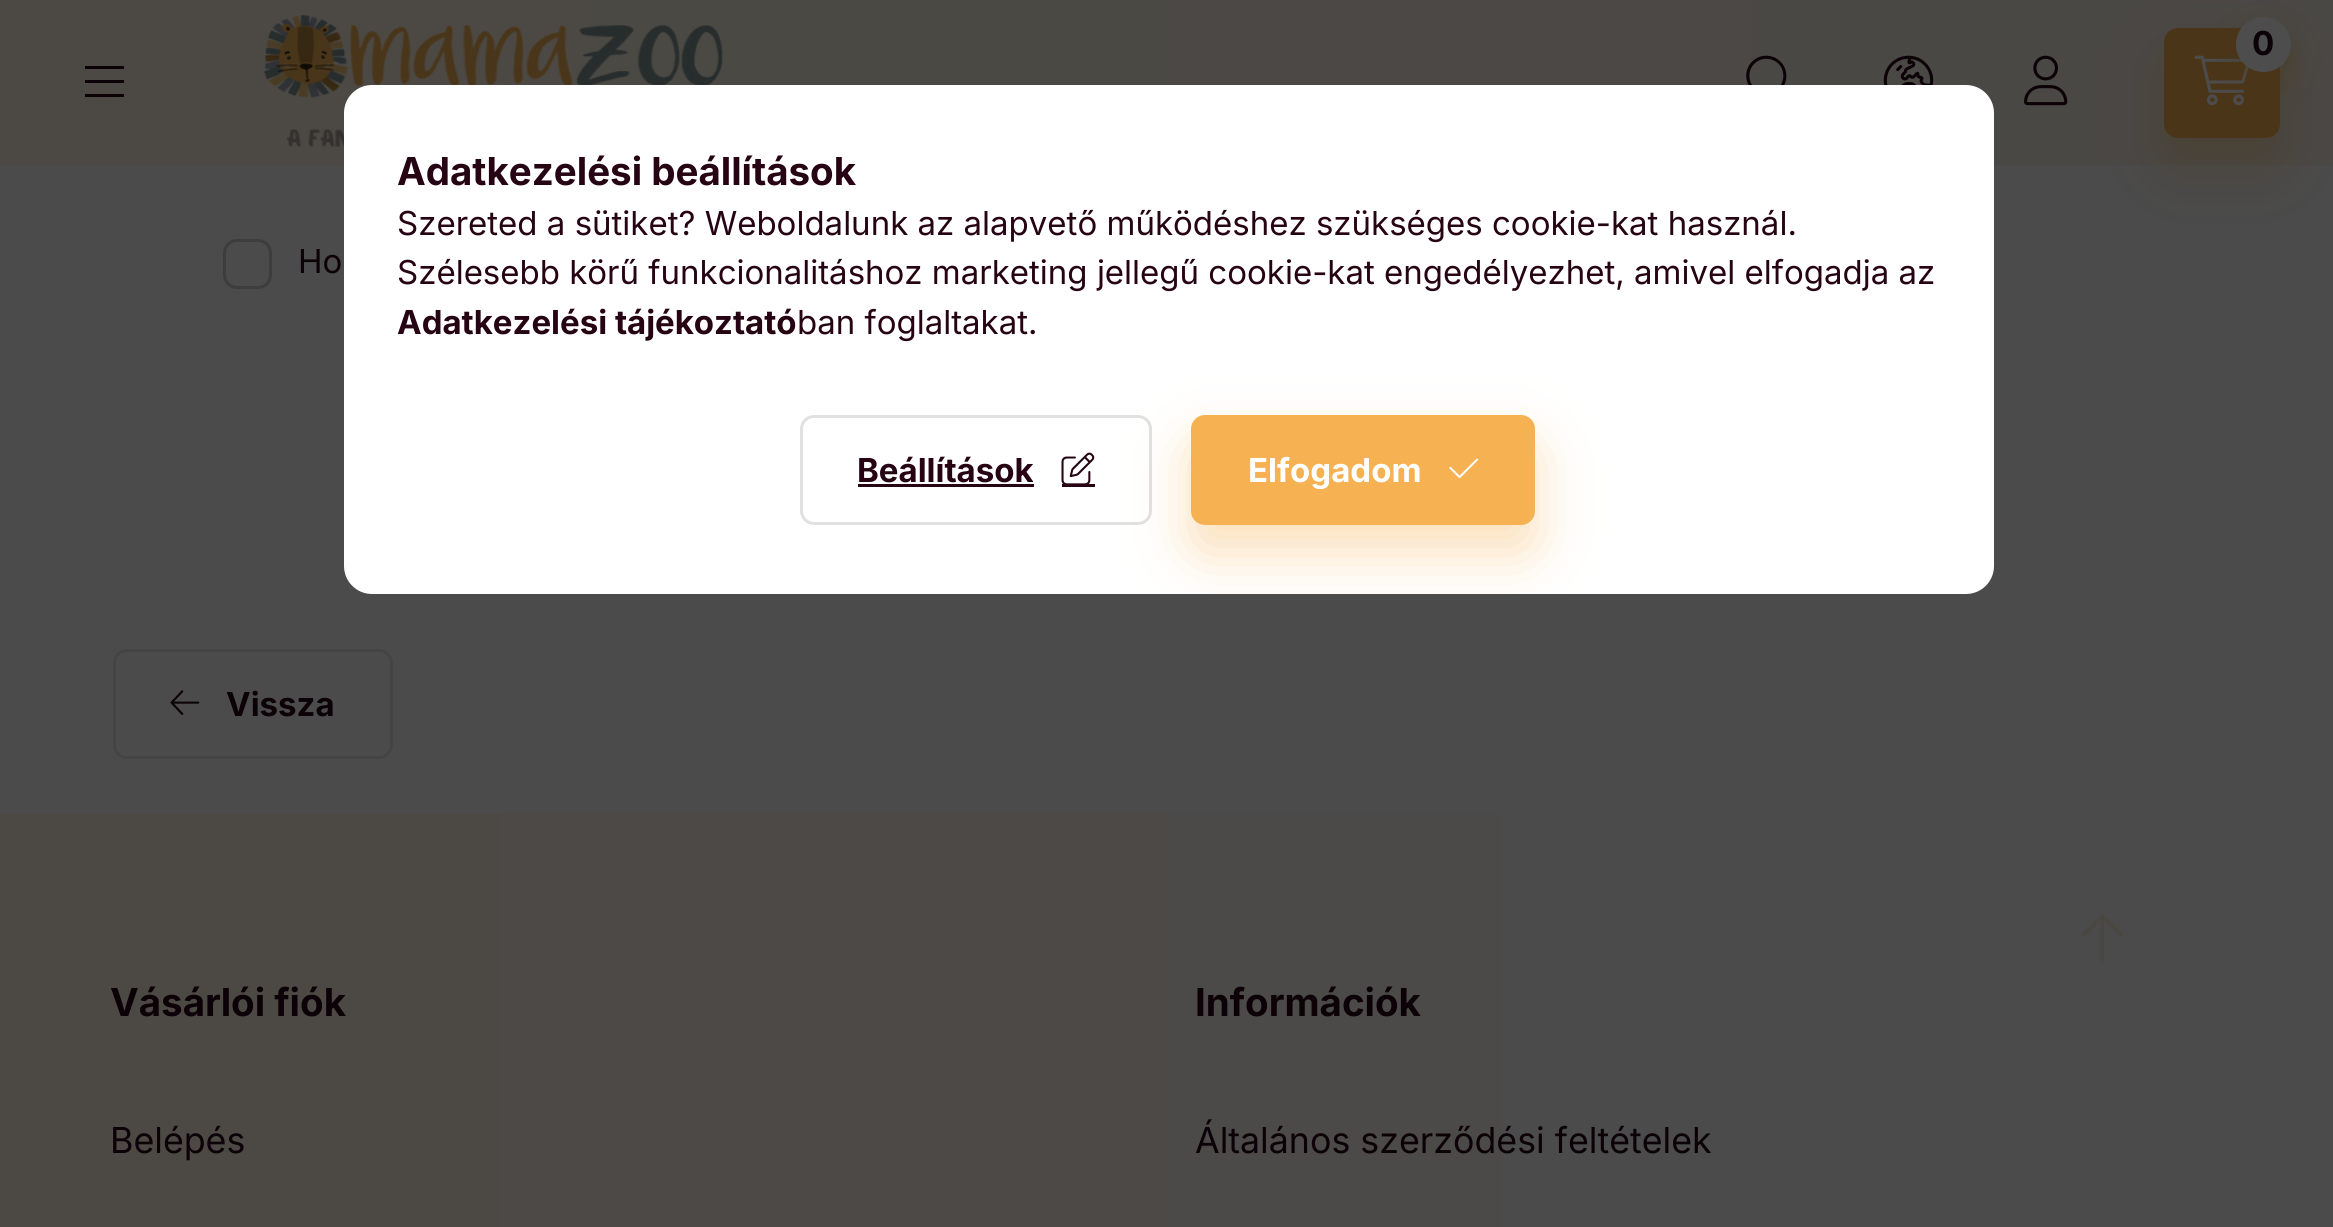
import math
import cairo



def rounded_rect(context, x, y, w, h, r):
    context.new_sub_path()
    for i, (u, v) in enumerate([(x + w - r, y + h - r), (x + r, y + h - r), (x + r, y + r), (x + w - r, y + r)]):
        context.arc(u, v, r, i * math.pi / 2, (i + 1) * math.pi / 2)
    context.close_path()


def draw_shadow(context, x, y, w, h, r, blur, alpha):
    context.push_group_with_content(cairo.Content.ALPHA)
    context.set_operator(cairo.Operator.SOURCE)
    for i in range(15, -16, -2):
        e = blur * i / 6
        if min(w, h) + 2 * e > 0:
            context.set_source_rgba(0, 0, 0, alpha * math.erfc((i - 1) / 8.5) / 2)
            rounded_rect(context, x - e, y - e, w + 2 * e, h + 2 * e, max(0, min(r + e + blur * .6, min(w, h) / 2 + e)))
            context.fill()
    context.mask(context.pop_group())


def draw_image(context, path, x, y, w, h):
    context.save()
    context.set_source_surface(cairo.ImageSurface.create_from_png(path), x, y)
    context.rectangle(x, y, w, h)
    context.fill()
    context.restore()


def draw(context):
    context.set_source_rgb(75 / 255, 75 / 255, 75 / 255)
    context.paint()
    gradient = cairo.LinearGradient(0, 615, 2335, 615)
    gradient.add_color_stop_rgba(0, 76 / 255, 73 / 255, 68 / 255, 1)
    gradient.add_color_stop_rgba(1, 74 / 255, 72 / 255, 69 / 255, 1)
    context.set_source(gradient)
    context.rectangle(0, 0, 2333, 165)
    context.fill()
    context.set_source_rgb(11 / 255, 1 / 255, 6 / 255)
    context.rectangle(85, 66, 39, 3)
    context.fill()
    context.rectangle(85, 80, 39, 3)
    context.fill()
    context.rectangle(85, 94, 39, 3)
    context.fill()
    draw_image(context, "images/1.png", 264, 14, 459, 133)
    context.set_source_rgb(74 / 255, 53 / 255, 25 / 255)
    draw_shadow(context, 2164, 55, 116, 110, 14, 27.5, 0.4)
    context.set_source_rgb(74 / 255, 53 / 255, 25 / 255)
    rounded_rect(context, 2164, 28, 116, 110, 14)
    context.fill()
    draw_image(context, "images/2.png", 2194, 55, 55, 51)
    context.set_source_rgb(74 / 255, 53 / 255, 25 / 255)
    draw_shadow(context, 2236, 30, 55, 55, 27.5, 14, 0.4)
    context.set_source_rgb(77 / 255, 77 / 255, 77 / 255)
    context.arc(2263.5, 44.5, 27.5, 0, 2 * math.pi)
    context.fill()
    draw_image(context, "images/3.png", 1746, 55, 41, 30)
    draw_image(context, "images/4.png", 1883, 55, 51, 30)
    draw_image(context, "images/5.png", 2024, 55, 44, 51)
    rounded_rect(context, 224.5, 240.5, 46, 47, 12.5)
    context.set_source_rgb(61 / 255, 61 / 255, 61 / 255)
    context.set_line_width(3)
    context.stroke()
    rounded_rect(context, 114.5, 650.5, 277, 107, 12.5)
    context.set_source_rgb(68 / 255, 68 / 255, 68 / 255)
    context.stroke()
    draw_image(context, "images/6.png", 170, 690, 30, 25)
    gradient = cairo.LinearGradient(0, 615, 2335, 615)
    gradient.add_color_stop_rgba(0, 76 / 255, 73 / 255, 68 / 255, 1)
    gradient.add_color_stop_rgba(1, 75 / 255, 74 / 255, 75 / 255, 1)
    context.set_source(gradient)
    context.rectangle(0, 814, 1501, 413)
    context.fill()
    context.set_source_rgb(1, 1, 1)
    rounded_rect(context, 344, 85, 1650, 509, 28)
    context.fill()
    rounded_rect(context, 801.5, 416.5, 349, 107, 12.5)
    context.set_source_rgb(225 / 255, 225 / 255, 225 / 255)
    context.stroke()
    context.set_source_rgb(38 / 255, 4 / 255, 19 / 255)
    context.rectangle(858, 484, 176, 3)
    context.fill()
    draw_image(context, "images/7.png", 1061, 452, 34, 32)
    context.rectangle(1062, 484, 33, 3)
    context.fill()
    context.save()
    rounded_rect(context, 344, 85, 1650, 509, 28)
    context.clip()
    context.set_source_rgb(245 / 255, 177 / 255, 82 / 255)
    draw_shadow(context, 1191, 443, 344, 110, 14, 27.5, 0.4)
    context.restore()
    context.set_source_rgb(245 / 255, 177 / 255, 82 / 255)
    rounded_rect(context, 1192.5, 416.5, 341, 107, 12.5)
    context.fill_preserve()
    context.stroke()
    draw_image(context, "images/8.png", 1449, 458, 30, 21)
    draw_image(context, "images/9.png", 2081, 915, 42, 49)
    context.select_font_face("Inter", cairo.FontSlant.NORMAL, cairo.FontWeight.BOLD)
    context.set_font_size(33)
    context.set_source_rgb(11 / 255, 1 / 255, 6 / 255)
    context.move_to(2252, 55)
    context.show_text("0")
    context.select_font_face("Inter")
    context.move_to(298, 273)
    context.show_text("Ho")
    context.select_font_face("Inter", cairo.FontSlant.NORMAL, cairo.FontWeight.BOLD)
    context.move_to(226, 716)
    context.show_text("Vissza")
    context.set_font_size(38.5)
    context.move_to(110, 1016)
    context.show_text("Vásárlói fiók")
    context.select_font_face("Inter")
    context.set_font_size(35.75)
    context.move_to(110, 1153)
    context.show_text("Belépés")
    context.select_font_face("Inter", cairo.FontSlant.NORMAL, cairo.FontWeight.BOLD)
    context.set_font_size(38.5)
    context.move_to(1195, 1016)
    context.show_text("Információk")
    context.select_font_face("Inter")
    context.set_font_size(35.75)
    context.move_to(1195, 1153)
    context.show_text("Általános szerződési feltételek")
    context.select_font_face("Inter", cairo.FontSlant.NORMAL, cairo.FontWeight.BOLD)
    context.set_font_size(38.5)
    context.set_source_rgb(38 / 255, 4 / 255, 19 / 255)
    context.move_to(397, 185)
    context.show_text("Adatkezelési beállítások")
    context.select_font_face("Inter")
    context.set_font_size(33)
    context.move_to(397, 235)
    context.show_text("Szereted a sütiket? Weboldalunk az alapvető működéshez szükséges cookie-kat használ.")
    context.move_to(397, 284)
    context.show_text("Szélesebb körű funkcionalitáshoz marketing jellegű cookie-kat engedélyezhet, amivel elfogadja az")
    context.select_font_face("Inter", cairo.FontSlant.NORMAL, cairo.FontWeight.BOLD)
    context.move_to(397, 334)
    context.show_text("Adatkezelési tájékoztató")
    context.select_font_face("Inter")
    context.move_to(797, 334)
    context.show_text("ban foglaltakat.")
    context.select_font_face("Inter", cairo.FontSlant.NORMAL, cairo.FontWeight.BOLD)
    context.move_to(857, 482)
    context.show_text("Beállítások")
    context.set_source_rgb(1, 1, 1)
    context.move_to(1248, 482)
    context.show_text("Elfogadom")


surface = cairo.ImageSurface(cairo.Format.RGB24, 2333, 1227)
context = cairo.Context(surface)
options = cairo.FontOptions()
options.set_hint_metrics(cairo.HintMetrics.OFF)
options.set_hint_style(cairo.HintStyle.NONE)
context.set_font_options(options)
context.set_miter_limit(4)
draw(context)
surface.write_to_png("out.png")
